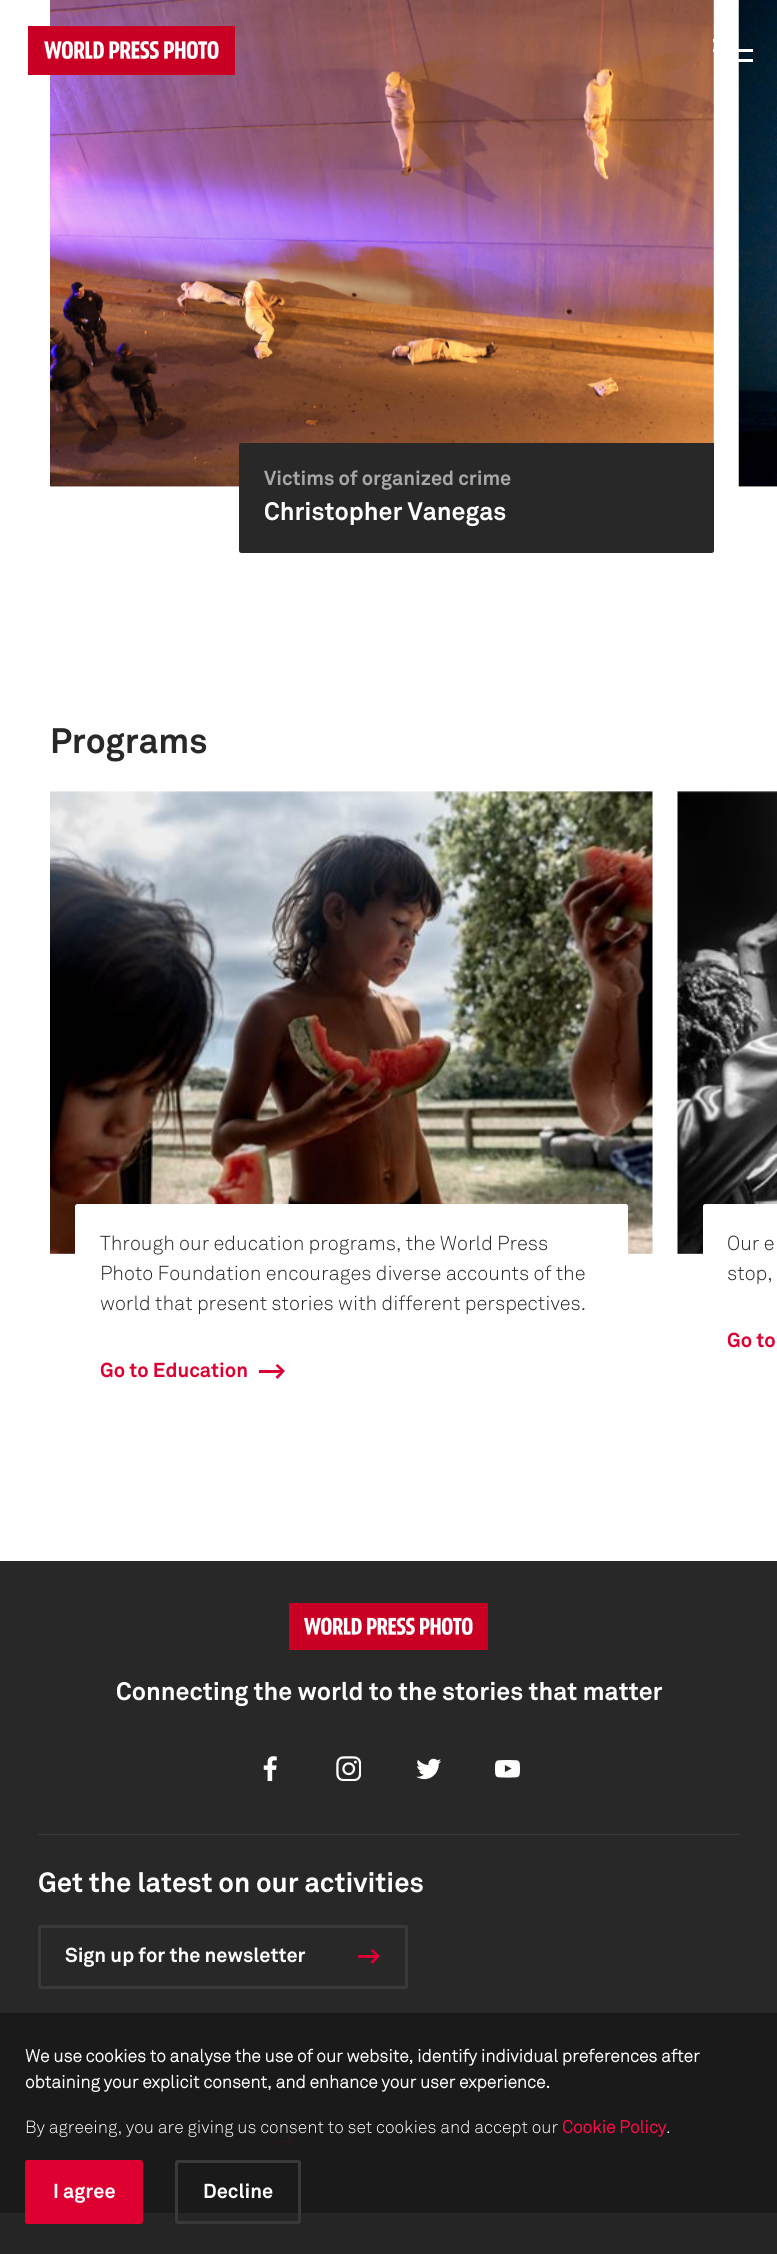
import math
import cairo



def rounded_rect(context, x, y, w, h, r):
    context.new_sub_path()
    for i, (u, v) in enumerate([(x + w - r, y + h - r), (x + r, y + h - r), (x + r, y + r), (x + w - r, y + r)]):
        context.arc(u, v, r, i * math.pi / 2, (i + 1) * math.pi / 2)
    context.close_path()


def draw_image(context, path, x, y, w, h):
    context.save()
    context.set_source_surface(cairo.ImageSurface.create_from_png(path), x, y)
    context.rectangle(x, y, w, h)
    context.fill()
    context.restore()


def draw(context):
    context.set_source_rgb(1, 1, 1)
    context.paint()
    context.set_source_rgb(37 / 255, 37 / 255, 37 / 255)
    context.rectangle(0, 2213, 777, 41)
    context.fill()
    draw_image(context, "images/3.png", 50, 0, 664, 487)
    draw_image(context, "images/1.png", 28, 26, 207, 49)
    context.set_source_rgb(1, 1, 1)
    context.rectangle(713, 39, 1, 3)
    context.fill()
    draw_image(context, "images/2.png", 738, 0, 39, 487)
    context.rectangle(713, 49, 40, 3)
    context.fill()
    context.rectangle(738, 59, 15, 3)
    context.fill()
    context.set_source_rgb(40 / 255, 40 / 255, 40 / 255)
    context.new_path()
    context.move_to(241.5, 443)
    context.line_to(714, 443)
    context.line_to(714, 550.5)
    context.curve_to(714, 552, 713, 553, 711.5, 553)
    context.line_to(241.5, 553)
    context.curve_to(240, 553, 239, 552, 239, 550.5)
    context.line_to(239, 445.5)
    context.curve_to(239, 444, 240, 443, 241.5, 443)
    context.close_path()
    context.fill()
    draw_image(context, "images/4.png", 50, 791, 603, 463)
    context.set_source_rgb(1, 1, 1)
    rounded_rect(context, 75, 1204, 553, 245, 2.5)
    context.fill()
    context.set_source_rgb(221 / 255, 0, 49 / 255)
    context.rectangle(259, 1370, 20, 3)
    context.fill()
    context.save()
    context.rectangle(263, 1364, 22, 15)
    context.clip()
    context.set_source_rgb(218 / 255, 0, 54 / 255)
    context.set_fill_rule(cairo.FillRule.EVEN_ODD)
    context.new_path()
    context.move_to(255, 1372.5)
    context.line_to(280, 1372.5)
    context.line_to(275.5, 1377)
    context.line_to(277.5, 1379)
    context.line_to(285, 1371)
    context.line_to(277.5, 1364)
    context.line_to(275.5, 1365.5)
    context.line_to(280, 1370)
    context.line_to(255, 1370)
    context.close_path()
    context.fill()
    context.restore()
    draw_image(context, "images/5.png", 677, 791, 100, 463)
    context.set_source_rgb(1, 1, 1)
    context.new_path()
    context.move_to(705.5, 1204)
    context.line_to(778, 1204)
    context.line_to(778, 1419)
    context.line_to(705.5, 1419)
    context.curve_to(704, 1419, 703, 1418, 703, 1416.5)
    context.line_to(703, 1206.5)
    context.curve_to(703, 1205, 704, 1204, 705.5, 1204)
    context.close_path()
    context.fill()
    context.set_source_rgb(26 / 255, 26 / 255, 26 / 255)
    context.rectangle(0, 2013, 777, 200)
    context.fill()
    context.set_source_rgb(221 / 255, 0, 49 / 255)
    rounded_rect(context, 26.5, 2161.5, 115, 61, 1)
    context.fill_preserve()
    context.set_line_width(3)
    context.stroke()
    rounded_rect(context, 176.5, 2161.5, 123, 61, 1)
    context.set_source_rgb(57 / 255, 57 / 255, 57 / 255)
    context.stroke()
    context.set_source_rgb(40 / 255, 40 / 255, 40 / 255)
    context.rectangle(0, 1561, 777, 452)
    context.fill()
    context.set_source_rgb(57 / 255, 57 / 255, 57 / 255)
    context.rectangle(38, 1834, 702, 1)
    context.fill()
    draw_image(context, "images/6.png", 289, 1603, 199, 47)
    draw_image(context, "images/7.png", 263, 1756, 14, 25)
    draw_image(context, "images/8.png", 336, 1756, 25, 25)
    draw_image(context, "images/9.png", 416, 1758, 25, 22)
    draw_image(context, "images/10.png", 495, 1760, 25, 18)
    rounded_rect(context, 39.5, 1926.5, 367, 61, 1)
    context.stroke()
    context.set_source_rgb(221 / 255, 0, 49 / 255)
    context.rectangle(358, 1957, 20, 1)
    context.fill()
    context.save()
    context.rectangle(358, 1949, 22, 15)
    context.clip()
    context.set_source_rgb(218 / 255, 0, 54 / 255)
    context.set_fill_rule(cairo.FillRule.EVEN_ODD)
    context.new_path()
    context.move_to(350, 1957.5)
    context.line_to(375, 1957.5)
    context.line_to(370.5, 1962)
    context.line_to(372.5, 1964)
    context.line_to(380, 1956)
    context.line_to(372.5, 1949)
    context.line_to(370.5, 1950.5)
    context.line_to(375, 1955)
    context.line_to(350, 1955)
    context.close_path()
    context.fill()
    context.restore()
    context.set_source_rgb(35 / 255, 24 / 255, 26 / 255)
    context.rectangle(273, 2142, 20, 1)
    context.fill()
    context.save()
    context.rectangle(273, 2134, 22, 15)
    context.clip()
    context.set_fill_rule(cairo.FillRule.EVEN_ODD)
    context.new_path()
    context.move_to(265, 2142.5)
    context.line_to(290, 2142.5)
    context.line_to(285.5, 2147)
    context.line_to(287.5, 2149)
    context.line_to(295, 2141)
    context.line_to(287.5, 2134)
    context.line_to(285.5, 2135.5)
    context.line_to(290, 2140)
    context.line_to(265, 2140)
    context.close_path()
    context.fill()
    context.restore()
    context.select_font_face("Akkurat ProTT", cairo.FontSlant.NORMAL, cairo.FontWeight.BOLD)
    context.set_font_size(20)
    context.set_source_rgb(168 / 255, 168 / 255, 168 / 255)
    context.move_to(264, 485)
    context.show_text("Victims of organized crime")
    context.set_font_size(25)
    context.set_source_rgb(1, 1, 1)
    context.move_to(264, 520)
    context.show_text("Christopher Vanegas")
    context.set_font_size(35)
    context.set_source_rgb(40 / 255, 40 / 255, 40 / 255)
    context.move_to(50, 753)
    context.show_text("Programs")
    context.select_font_face("Akkurat ProTT Light")
    context.set_font_size(20)
    context.move_to(100, 1250)
    context.show_text("Through our education programs, the World Press")
    context.move_to(100, 1280)
    context.show_text("Photo Foundation encourages diverse accounts of the")
    context.move_to(100, 1310)
    context.show_text("world that present stories with different perspectives.")
    context.select_font_face("Akkurat ProTT", cairo.FontSlant.NORMAL, cairo.FontWeight.BOLD)
    context.set_source_rgb(221 / 255, 0, 49 / 255)
    context.move_to(100, 1377)
    context.show_text("Go to Education")
    context.select_font_face("Akkurat ProTT Light")
    context.set_source_rgb(40 / 255, 40 / 255, 40 / 255)
    context.move_to(727, 1250)
    context.show_text("Our e")
    context.move_to(727, 1280)
    context.show_text("stop,")
    context.select_font_face("Akkurat ProTT", cairo.FontSlant.NORMAL, cairo.FontWeight.BOLD)
    context.set_source_rgb(221 / 255, 0, 49 / 255)
    context.move_to(727, 1347)
    context.show_text("Go to")
    context.select_font_face("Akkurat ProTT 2", cairo.FontSlant.NORMAL, cairo.FontWeight.BOLD)
    context.set_font_size(17.5)
    context.set_source_rgb(1, 1, 1)
    context.move_to(25, 2062)
    context.show_text("We use cookies to analyse the use of our website, identify individual preferences after")
    context.move_to(25, 2088)
    context.show_text("obtaining your explicit consent, and enhance your user experience.")
    context.select_font_face("Akkurat ProTT Light")
    context.move_to(25, 2133)
    context.show_text("By agreeing, you are giving us consent to set cookies and accept our")
    context.select_font_face("Akkurat ProTT 2", cairo.FontSlant.NORMAL, cairo.FontWeight.BOLD)
    context.set_source_rgb(1, 10 / 255, 71 / 255)
    context.move_to(562, 2133)
    context.show_text("Cookie Policy")
    context.select_font_face("Akkurat ProTT Light")
    context.set_source_rgb(1, 1, 1)
    context.move_to(666, 2133)
    context.show_text(".")
    context.select_font_face("Akkurat ProTT", cairo.FontSlant.NORMAL, cairo.FontWeight.BOLD)
    context.set_font_size(20)
    context.move_to(53, 2198)
    context.show_text("I agree")
    context.move_to(203, 2198)
    context.show_text("Decline")
    context.set_font_size(25)
    context.move_to(116, 1700)
    context.show_text("Connecting the world to the stories that matter")
    context.set_font_size(27.5)
    context.move_to(38, 1892)
    context.show_text("Get the latest on our activities")
    context.set_font_size(20)
    context.move_to(65, 1962)
    context.show_text("Sign up for the newsletter")


surface = cairo.ImageSurface(cairo.Format.RGB24, 777, 2254)
context = cairo.Context(surface)
options = cairo.FontOptions()
options.set_hint_metrics(cairo.HintMetrics.OFF)
options.set_hint_style(cairo.HintStyle.NONE)
context.set_font_options(options)
context.set_miter_limit(4)
draw(context)
surface.write_to_png("out.png")
